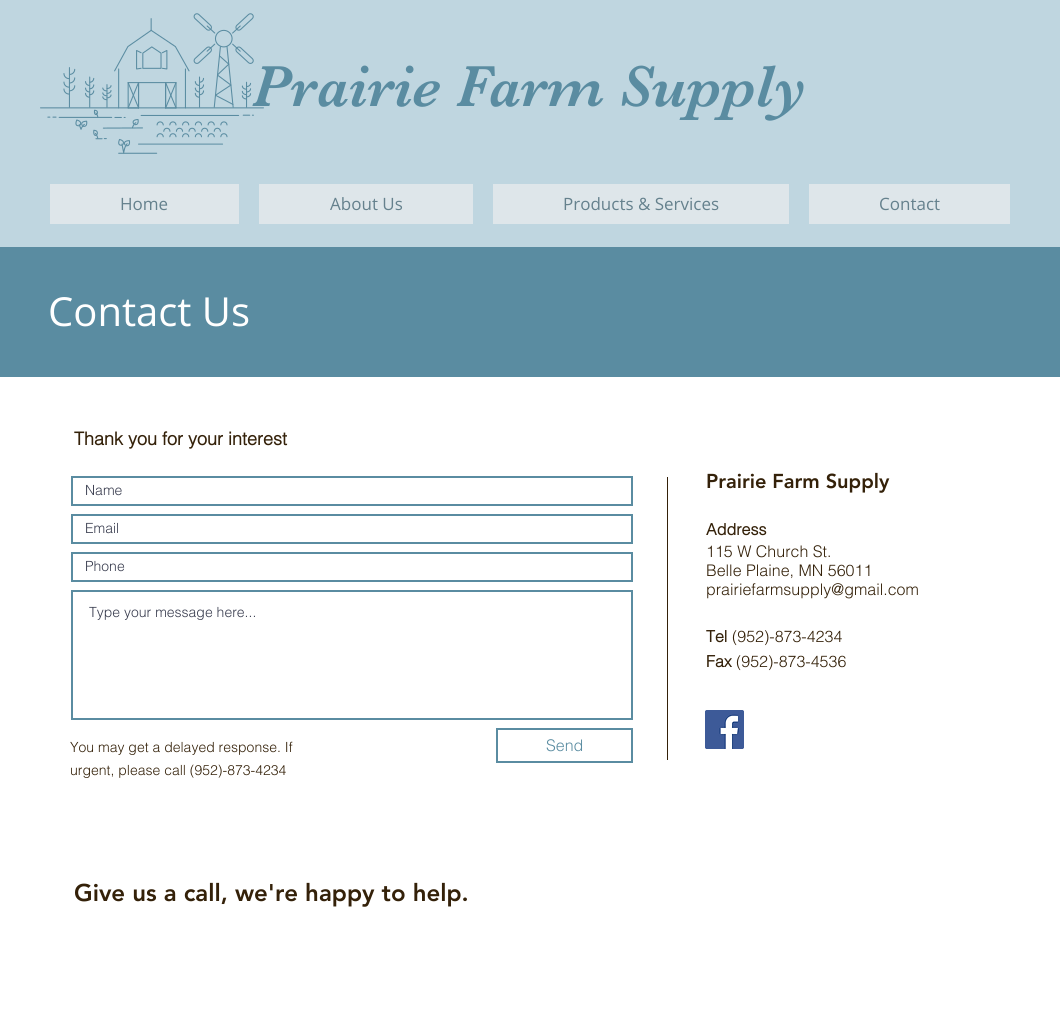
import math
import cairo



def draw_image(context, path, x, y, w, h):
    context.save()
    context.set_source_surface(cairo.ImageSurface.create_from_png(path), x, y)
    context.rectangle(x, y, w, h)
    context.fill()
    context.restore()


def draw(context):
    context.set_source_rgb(1, 1, 1)
    context.paint()
    context.set_source_rgb(191 / 255, 214 / 255, 224 / 255)
    context.rectangle(0, 0, 1060, 247)
    context.fill()
    context.set_source_rgb(222 / 255, 230 / 255, 234 / 255)
    context.rectangle(50, 184, 189, 40)
    context.fill()
    context.rectangle(259, 184, 214, 40)
    context.fill()
    context.rectangle(493, 184, 296, 40)
    context.fill()
    context.rectangle(809, 184, 201, 40)
    context.fill()
    context.set_source_rgb(90 / 255, 140 / 255, 161 / 255)
    context.rectangle(0, 247, 1060, 130)
    context.fill()
    context.rectangle(72, 477, 560, 28)
    context.stroke()
    context.rectangle(72, 515, 560, 28)
    context.stroke()
    context.rectangle(72, 553, 560, 28)
    context.stroke()
    context.rectangle(72, 591, 560, 128)
    context.stroke()
    context.rectangle(497, 729, 135, 33)
    context.stroke()
    context.set_source_rgb(52 / 255, 33 / 255, 9 / 255)
    context.rectangle(667, 477, 1, 283)
    context.fill()
    draw_image(context, "images/2.png", 705, 710, 39, 39)
    context.select_font_face("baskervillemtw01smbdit")
    context.set_font_size(60)
    context.set_source_rgb(90 / 255, 140 / 255, 161 / 255)
    context.move_to(252, 106)
    context.show_text("Prairie Farm Supply")
    draw_image(context, "images/1.png", 40, 13, 224, 141)
    context.select_font_face("Open Sans")
    context.set_font_size(17)
    context.set_source_rgb(101 / 255, 129 / 255, 141 / 255)
    context.move_to(120, 210)
    context.show_text("Home")
    context.move_to(330, 210)
    context.show_text("About Us")
    context.move_to(563, 210)
    context.show_text("Products & Services")
    context.move_to(879, 210)
    context.show_text("Contact")
    context.set_font_size(40)
    context.set_source_rgb(1, 1, 1)
    context.move_to(48, 326)
    context.show_text("Contact Us")
    context.select_font_face("helvetica", cairo.FontSlant.NORMAL, cairo.FontWeight.BOLD)
    context.set_font_size(18)
    context.set_source_rgb(52 / 255, 33 / 255, 9 / 255)
    context.move_to(74, 445)
    context.show_text("Thank you for your interest")
    context.select_font_face("helvetica Light")
    context.set_font_size(14)
    context.set_source_rgb(55 / 255, 59 / 255, 77 / 255)
    context.move_to(85, 495)
    context.show_text("Name")
    context.move_to(85, 533)
    context.show_text("Email")
    context.move_to(85, 571)
    context.show_text("Phone")
    context.move_to(89, 617)
    context.show_text("Type your message here...")
    context.set_source_rgb(52 / 255, 33 / 255, 9 / 255)
    context.move_to(70, 752)
    context.show_text("You may get a delayed response. If")
    context.move_to(70, 775)
    context.show_text("urgent, please call (952)-873-4234")
    context.set_font_size(16)
    context.set_source_rgb(90 / 255, 140 / 255, 161 / 255)
    context.move_to(546, 751)
    context.show_text("Send")
    context.select_font_face("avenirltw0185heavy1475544 Black")
    context.set_font_size(20)
    context.set_source_rgb(52 / 255, 33 / 255, 9 / 255)
    context.move_to(706, 488)
    context.show_text("Prairie Farm Supply")
    context.select_font_face("helvetica", cairo.FontSlant.NORMAL, cairo.FontWeight.BOLD)
    context.set_font_size(16)
    context.move_to(706, 535)
    context.show_text("Address")
    context.select_font_face("helvetica Light")
    context.move_to(706, 557)
    context.show_text("115 W Church St.")
    context.move_to(706, 576)
    context.show_text("Belle Plaine, MN 56011")
    context.move_to(706, 595)
    context.show_text("prairiefarmsupply@gmail.com")
    context.select_font_face("helvetica", cairo.FontSlant.NORMAL, cairo.FontWeight.BOLD)
    context.move_to(706, 642)
    context.show_text("Tel")
    context.select_font_face("helvetica Light")
    context.move_to(732, 642)
    context.show_text("(952)-873-4234")
    context.select_font_face("helvetica", cairo.FontSlant.NORMAL, cairo.FontWeight.BOLD)
    context.move_to(706, 667)
    context.show_text("Fax")
    context.select_font_face("helvetica Light")
    context.move_to(736, 667)
    context.show_text("(952)-873-4536")
    context.select_font_face("avenirltw0185heavy1475544 Black")
    context.set_font_size(24)
    context.move_to(74, 901)
    context.show_text("Give us a call, we're happy to help.")


surface = cairo.ImageSurface(cairo.Format.RGB24, 1060, 1010)
context = cairo.Context(surface)
options = cairo.FontOptions()
options.set_hint_metrics(cairo.HintMetrics.OFF)
options.set_hint_style(cairo.HintStyle.NONE)
context.set_font_options(options)
context.set_miter_limit(4)
draw(context)
surface.write_to_png("out.png")
